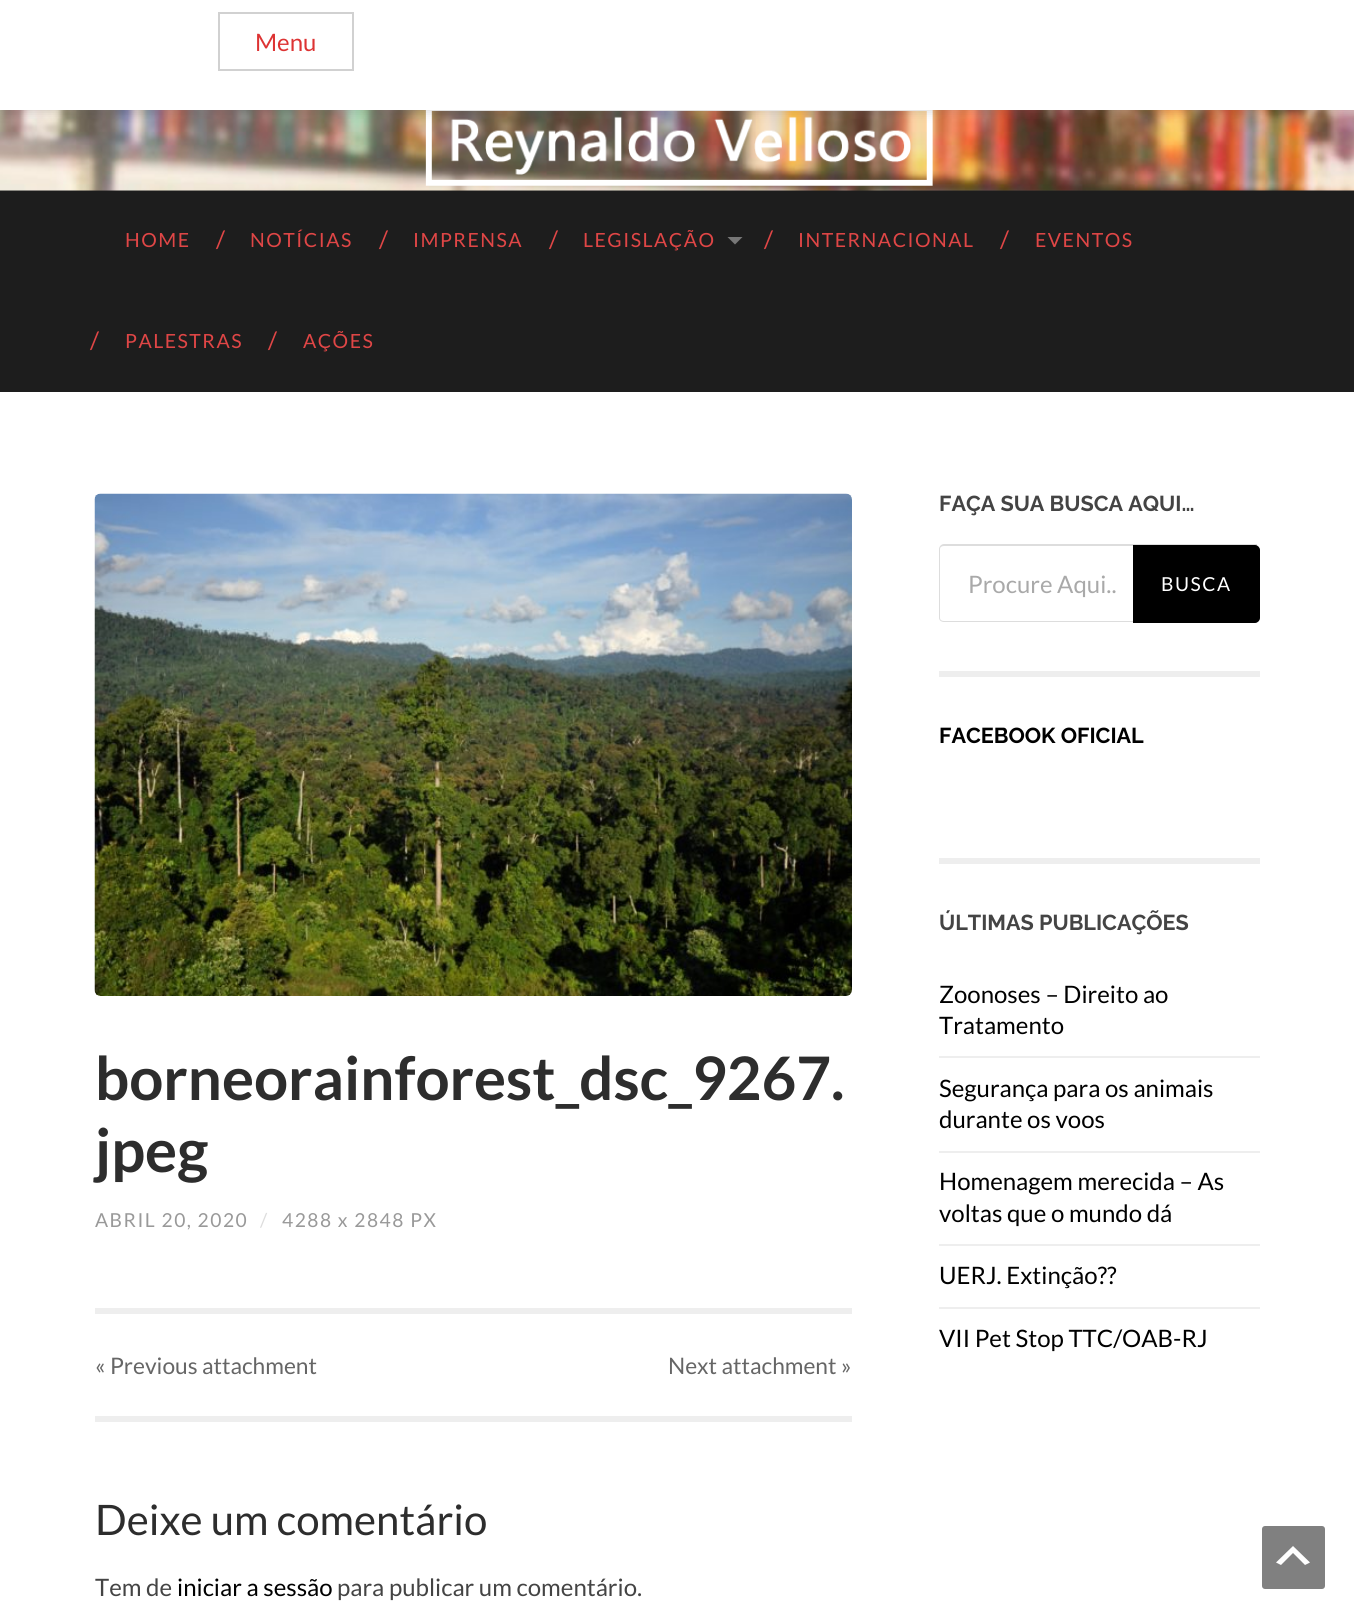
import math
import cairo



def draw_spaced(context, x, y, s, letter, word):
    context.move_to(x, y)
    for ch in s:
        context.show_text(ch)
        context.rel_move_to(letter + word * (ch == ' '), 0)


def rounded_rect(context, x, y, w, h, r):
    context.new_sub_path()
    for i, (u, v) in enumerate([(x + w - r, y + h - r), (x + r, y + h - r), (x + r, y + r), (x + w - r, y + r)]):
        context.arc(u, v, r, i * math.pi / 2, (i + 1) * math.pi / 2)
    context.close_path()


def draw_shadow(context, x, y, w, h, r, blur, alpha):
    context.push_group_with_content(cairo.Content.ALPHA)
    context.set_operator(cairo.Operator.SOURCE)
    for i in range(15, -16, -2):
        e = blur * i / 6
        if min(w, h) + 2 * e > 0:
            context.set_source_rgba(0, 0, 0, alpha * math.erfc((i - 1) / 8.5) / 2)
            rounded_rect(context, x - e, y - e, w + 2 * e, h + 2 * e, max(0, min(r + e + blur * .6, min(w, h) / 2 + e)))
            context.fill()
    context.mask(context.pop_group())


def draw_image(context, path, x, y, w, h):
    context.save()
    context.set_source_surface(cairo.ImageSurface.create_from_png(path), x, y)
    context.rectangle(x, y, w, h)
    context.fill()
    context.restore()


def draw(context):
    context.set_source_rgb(1, 1, 1)
    context.paint()
    context.set_source_rgb(38 / 255, 38 / 255, 38 / 255)
    context.rectangle(0, 190, 1354, 1)
    context.fill()
    draw_image(context, "images/1.png", 0, 110, 1354, 81)
    draw_image(context, "images/2.png", 425, 110, 508, 76)
    context.set_source_rgb(100 / 255, 100 / 255, 100 / 255)
    draw_shadow(context, 0, 0, 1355, 110, 0, 6, 0.3)
    context.set_source_rgb(1, 1, 1)
    context.rectangle(0, 0, 1354, 110)
    context.fill()
    context.rectangle(219, 13, 134, 57)
    context.set_source_rgb(209 / 255, 209 / 255, 209 / 255)
    context.stroke()
    context.set_source_rgb(29 / 255, 29 / 255, 29 / 255)
    context.rectangle(0, 191, 1354, 201)
    context.fill()
    context.set_source_rgb(119 / 255, 119 / 255, 119 / 255)
    context.new_path()
    context.move_to(727.5, 237)
    context.line_to(742.5, 237)
    context.line_to(735, 244.5)
    context.close_path()
    context.fill()
    draw_image(context, "images/3.png", 94, 493, 758, 503)
    context.set_source_rgb(238 / 255, 238 / 255, 238 / 255)
    context.rectangle(95, 1308, 757, 6)
    context.fill()
    context.rectangle(95, 1416, 757, 6)
    context.fill()
    context.rectangle(939, 671, 321, 6)
    context.fill()
    context.set_source_rgb(221 / 255, 221 / 255, 221 / 255)
    context.set_fill_rule(cairo.FillRule.EVEN_ODD)
    context.new_path()
    context.move_to(944, 544)
    context.line_to(1257, 544)
    context.line_to(1257, 622)
    context.line_to(944, 622)
    context.curve_to(941, 622, 939, 620, 939, 618)
    context.line_to(939, 549)
    context.curve_to(939, 547, 941, 544, 944, 544)
    context.close_path()
    context.move_to(944, 546)
    context.line_to(1257, 546)
    context.line_to(1257, 621)
    context.line_to(944, 621)
    context.curve_to(942, 621, 940, 620, 940, 618)
    context.line_to(940, 549)
    context.curve_to(940, 547, 942, 546, 944, 546)
    context.close_path()
    context.fill()
    context.set_source_rgb(0, 0, 0)
    context.new_path()
    context.move_to(1134, 546)
    context.line_to(1255, 546)
    context.curve_to(1257, 546, 1259, 548, 1259, 550)
    context.line_to(1259, 618)
    context.curve_to(1259, 620, 1257, 622, 1255, 622)
    context.line_to(1134, 622)
    context.close_path()
    context.fill_preserve()
    context.stroke()
    context.set_source_rgb(238 / 255, 238 / 255, 238 / 255)
    context.rectangle(939, 858, 321, 6)
    context.fill()
    context.rectangle(939, 1056, 321, 2)
    context.fill()
    context.rectangle(939, 1151, 321, 2)
    context.fill()
    context.rectangle(939, 1244, 321, 2)
    context.fill()
    context.rectangle(939, 1307, 321, 2)
    context.fill()
    context.set_source_rgb(128 / 255, 128 / 255, 128 / 255)
    rounded_rect(context, 1262, 1526, 63, 63, 3)
    context.fill()
    context.set_source_rgb(1, 1, 1)
    context.set_fill_rule(cairo.FillRule.WINDING)
    context.new_path()
    context.move_to(1305, 1565)
    context.line_to(1293, 1553)
    context.line_to(1281, 1565)
    context.line_to(1276, 1562.5)
    context.line_to(1293, 1546)
    context.line_to(1310, 1562.5)
    context.close_path()
    context.fill()
    context.select_font_face("Lato")
    context.set_font_size(24)
    context.set_source_rgb(221 / 255, 51 / 255, 51 / 255)
    context.move_to(255, 51)
    context.show_text("Menu")
    context.set_font_size(19.5)
    context.set_source_rgb(224 / 255, 70 / 255, 70 / 255)
    draw_spaced(context, 125, 247, "HOME", 1.5, 0)
    context.set_font_size(24)
    context.move_to(216, 248)
    context.show_text("/")
    context.set_font_size(19.5)
    draw_spaced(context, 250, 247, "NOTÍCIAS", 1.5, 0)
    context.set_font_size(24)
    context.move_to(379, 248)
    context.show_text("/")
    context.set_font_size(19.5)
    draw_spaced(context, 413, 247, "IMPRENSA", 1.5, 0)
    context.set_font_size(24)
    context.move_to(549, 248)
    context.show_text("/")
    context.set_font_size(19.5)
    draw_spaced(context, 583, 247, "LEGISLAÇÃO", 1.5, 0)
    context.set_font_size(24)
    context.move_to(764, 248)
    context.show_text("/")
    context.set_font_size(19.5)
    draw_spaced(context, 798, 247, "INTERNACIONAL", 1.5, 0)
    context.set_font_size(24)
    context.move_to(1000, 248)
    context.show_text("/")
    context.set_font_size(19.5)
    draw_spaced(context, 1035, 247, "EVENTOS", 1.5, 0)
    context.set_font_size(24)
    context.move_to(90, 349)
    context.show_text("/")
    context.set_font_size(19.5)
    draw_spaced(context, 125, 348, "PALESTRAS", 1.5, 0)
    context.set_font_size(24)
    context.move_to(268, 349)
    context.show_text("/")
    context.set_font_size(19.5)
    draw_spaced(context, 303, 348, "AÇÕES", 1.5, 0)
    context.select_font_face("Lato", cairo.FontSlant.NORMAL, cairo.FontWeight.BOLD)
    context.set_font_size(60)
    context.set_source_rgb(45 / 255, 45 / 255, 45 / 255)
    context.move_to(95, 1100)
    context.show_text("borneorainforest_dsc_9267.")
    context.move_to(95, 1172)
    context.show_text("jpeg")
    context.select_font_face("Lato")
    context.set_font_size(19.25)
    context.set_source_rgb(153 / 255, 153 / 255, 153 / 255)
    draw_spaced(context, 95, 1227, "ABRIL 20, 2020", 1.5, 0)
    context.set_source_rgb(221 / 255, 221 / 255, 221 / 255)
    draw_spaced(context, 260, 1227, "/", 1.5, 0)
    context.set_source_rgb(153 / 255, 153 / 255, 153 / 255)
    draw_spaced(context, 282, 1227, "4288 x 2848 PX", 1.5, 0)
    context.set_font_size(22.75)
    context.set_source_rgb(102 / 255, 102 / 255, 102 / 255)
    context.move_to(95, 1374)
    context.show_text("« Previous attachment")
    context.move_to(668, 1374)
    context.show_text("Next attachment »")
    context.set_font_size(42)
    context.set_source_rgb(45 / 255, 45 / 255, 45 / 255)
    context.move_to(95, 1535)
    context.show_text("Deixe um comentário")
    context.set_font_size(24)
    context.set_source_rgb(68 / 255, 68 / 255, 68 / 255)
    context.move_to(95, 1596)
    context.show_text("Tem de")
    context.set_source_rgb(0, 0, 0)
    context.move_to(177, 1596)
    context.show_text("iniciar a sessão")
    context.set_source_rgb(68 / 255, 68 / 255, 68 / 255)
    context.move_to(337, 1596)
    context.show_text("para publicar um comentário.")
    context.select_font_face("Raleway", cairo.FontSlant.NORMAL, cairo.FontWeight.BOLD)
    context.set_font_size(21.6)
    context.move_to(939, 511)
    context.show_text("FAÇA SUA BUSCA AQUI…")
    context.select_font_face("Lato")
    context.set_font_size(24)
    context.set_source_rgb(169 / 255, 169 / 255, 169 / 255)
    context.move_to(968, 593)
    context.show_text("Procure Aqui..")
    context.set_font_size(19.25)
    context.set_source_rgb(1, 1, 1)
    draw_spaced(context, 1161, 591, "BUSCA", 1.5, 0)
    context.select_font_face("Raleway", cairo.FontSlant.NORMAL, cairo.FontWeight.BOLD)
    context.set_font_size(21.6)
    context.set_source_rgb(0, 0, 0)
    context.move_to(939, 743)
    context.show_text("FACEBOOK OFICIAL")
    context.set_source_rgb(68 / 255, 68 / 255, 68 / 255)
    context.move_to(939, 930)
    context.show_text("ÚLTIMAS PUBLICAÇÕES")
    context.select_font_face("Lato")
    context.set_font_size(24)
    context.set_source_rgb(0, 0, 0)
    context.move_to(939, 1003)
    context.show_text("Zoonoses – Direito ao")
    context.move_to(939, 1034)
    context.show_text("Tratamento")
    context.move_to(939, 1097)
    context.show_text("Segurança para os animais")
    context.move_to(939, 1128)
    context.show_text("durante os voos")
    context.move_to(939, 1190)
    context.show_text("Homenagem merecida – As")
    context.move_to(939, 1222)
    context.show_text("voltas que o mundo dá")
    context.move_to(939, 1284)
    context.show_text("UERJ. Extinção??")
    context.move_to(939, 1347)
    context.show_text("VII Pet Stop TTC/OAB-RJ")


surface = cairo.ImageSurface(cairo.Format.RGB24, 1354, 1618)
context = cairo.Context(surface)
options = cairo.FontOptions()
options.set_hint_metrics(cairo.HintMetrics.OFF)
options.set_hint_style(cairo.HintStyle.NONE)
context.set_font_options(options)
context.set_miter_limit(4)
draw(context)
surface.write_to_png("out.png")
